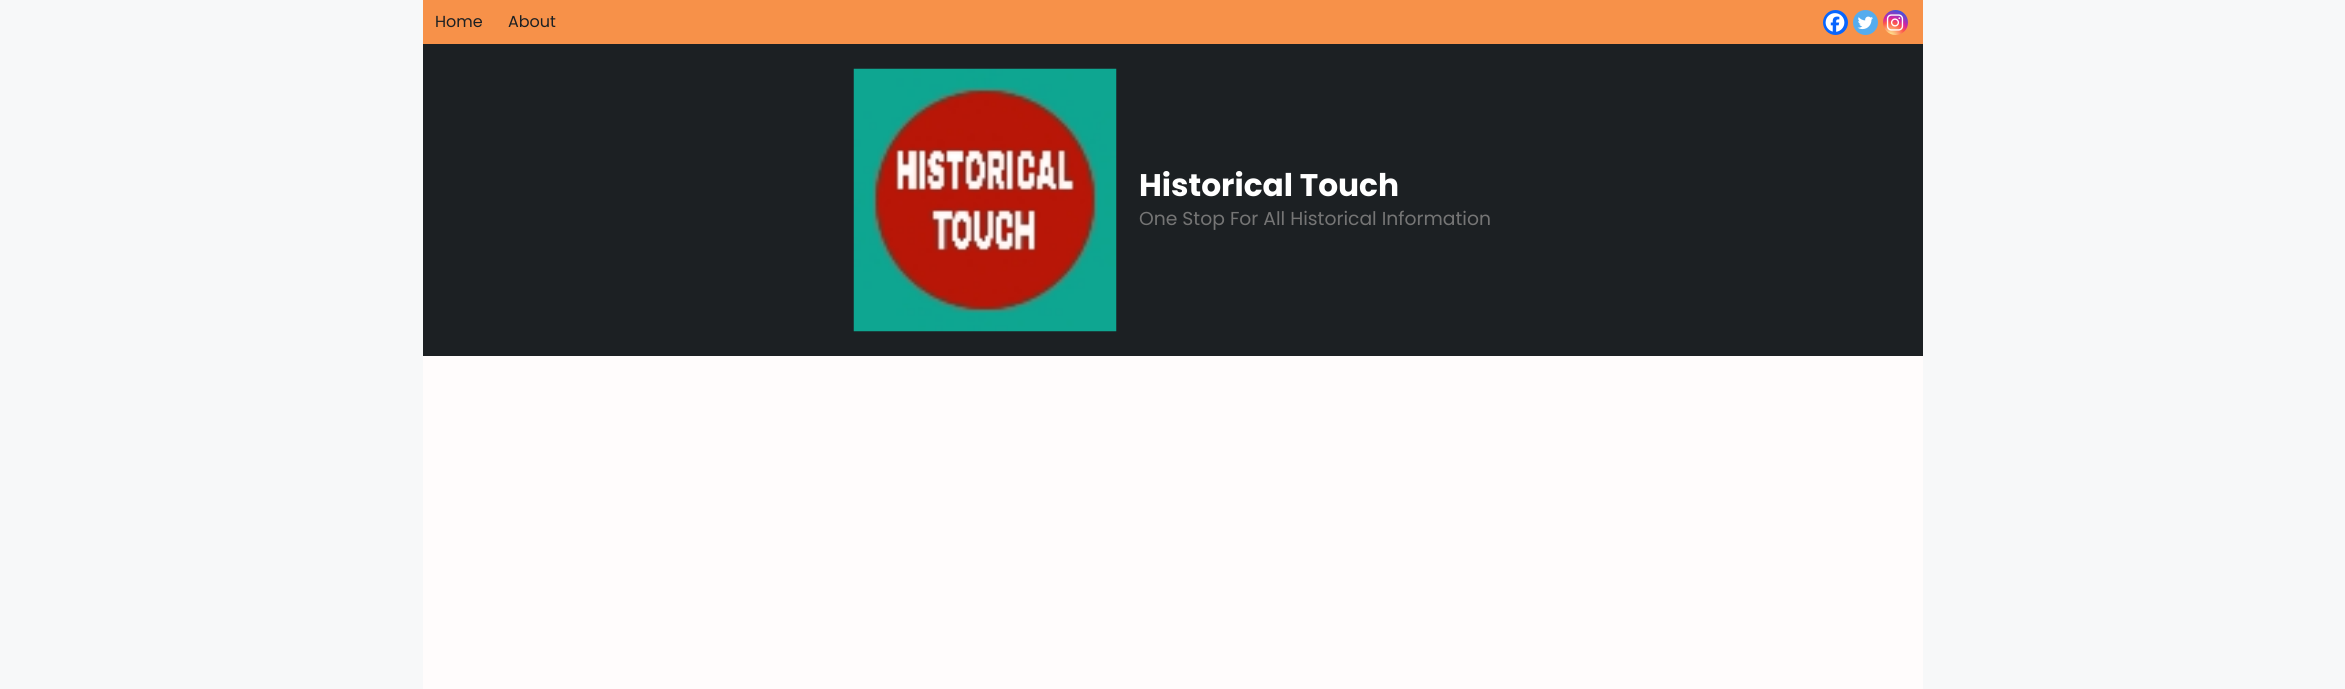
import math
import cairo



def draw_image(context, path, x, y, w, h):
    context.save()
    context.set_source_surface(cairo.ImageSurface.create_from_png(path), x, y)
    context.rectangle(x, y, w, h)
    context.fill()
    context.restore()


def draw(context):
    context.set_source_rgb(247 / 255, 248 / 255, 249 / 255)
    context.paint()
    context.set_source_rgb(247 / 255, 145 / 255, 73 / 255)
    context.rectangle(423, 0, 1500, 44)
    context.fill()
    context.set_source_rgb(7 / 255, 101 / 255, 254 / 255)
    context.arc(1835.5, 22.5, 12.5, 0, 2 * math.pi)
    context.fill()
    draw_image(context, "images/1.png", 1825, 13, 20, 19)
    context.set_source_rgb(85 / 255, 172 / 255, 238 / 255)
    context.arc(1865.5, 22.5, 12.5, 0, 2 * math.pi)
    context.fill()
    draw_image(context, "images/2.png", 1857, 16, 16, 14)
    gradient = cairo.RadialGradient(1890, 37, 0, 1890, 37, 32)
    gradient.add_color_stop_rgba(0, 253 / 255, 244 / 255, 151 / 255, 1)
    gradient.add_color_stop_rgba(0.05, 253 / 255, 244 / 255, 151 / 255, 1)
    gradient.add_color_stop_rgba(0.45, 253 / 255, 89 / 255, 73 / 255, 1)
    gradient.add_color_stop_rgba(0.6, 214 / 255, 36 / 255, 159 / 255, 1)
    gradient.add_color_stop_rgba(0.9, 40 / 255, 90 / 255, 235 / 255, 1)
    context.set_source(gradient)
    context.arc(1895.5, 22.5, 12.5, 0, 2 * math.pi)
    context.fill()
    draw_image(context, "images/3.png", 1886, 14, 18, 17)
    context.set_source_rgb(28 / 255, 32 / 255, 35 / 255)
    context.rectangle(423, 44, 1500, 312)
    context.fill()
    draw_image(context, "images/4.png", 853, 68, 264, 264)
    context.set_source_rgb(1, 252 / 255, 252 / 255)
    context.rectangle(423, 356, 1500, 333)
    context.fill()
    context.select_font_face("Poppins")
    context.set_font_size(16)
    context.set_source_rgb(28 / 255, 32 / 255, 35 / 255)
    context.move_to(435, 27)
    context.show_text("Home")
    context.move_to(508, 27)
    context.show_text("About")
    context.select_font_face("Poppins", cairo.FontSlant.NORMAL, cairo.FontWeight.BOLD)
    context.set_font_size(31.25)
    context.set_source_rgb(1, 1, 1)
    context.move_to(1139, 196)
    context.show_text("Historical Touch")
    context.select_font_face("Poppins")
    context.set_font_size(18.75)
    context.set_source_rgb(117 / 255, 117 / 255, 117 / 255)
    context.move_to(1139, 225)
    context.show_text("One Stop For All Historical Information")


surface = cairo.ImageSurface(cairo.Format.RGB24, 2345, 689)
context = cairo.Context(surface)
options = cairo.FontOptions()
options.set_hint_metrics(cairo.HintMetrics.OFF)
options.set_hint_style(cairo.HintStyle.NONE)
context.set_font_options(options)
context.set_miter_limit(4)
draw(context)
surface.write_to_png("out.png")
